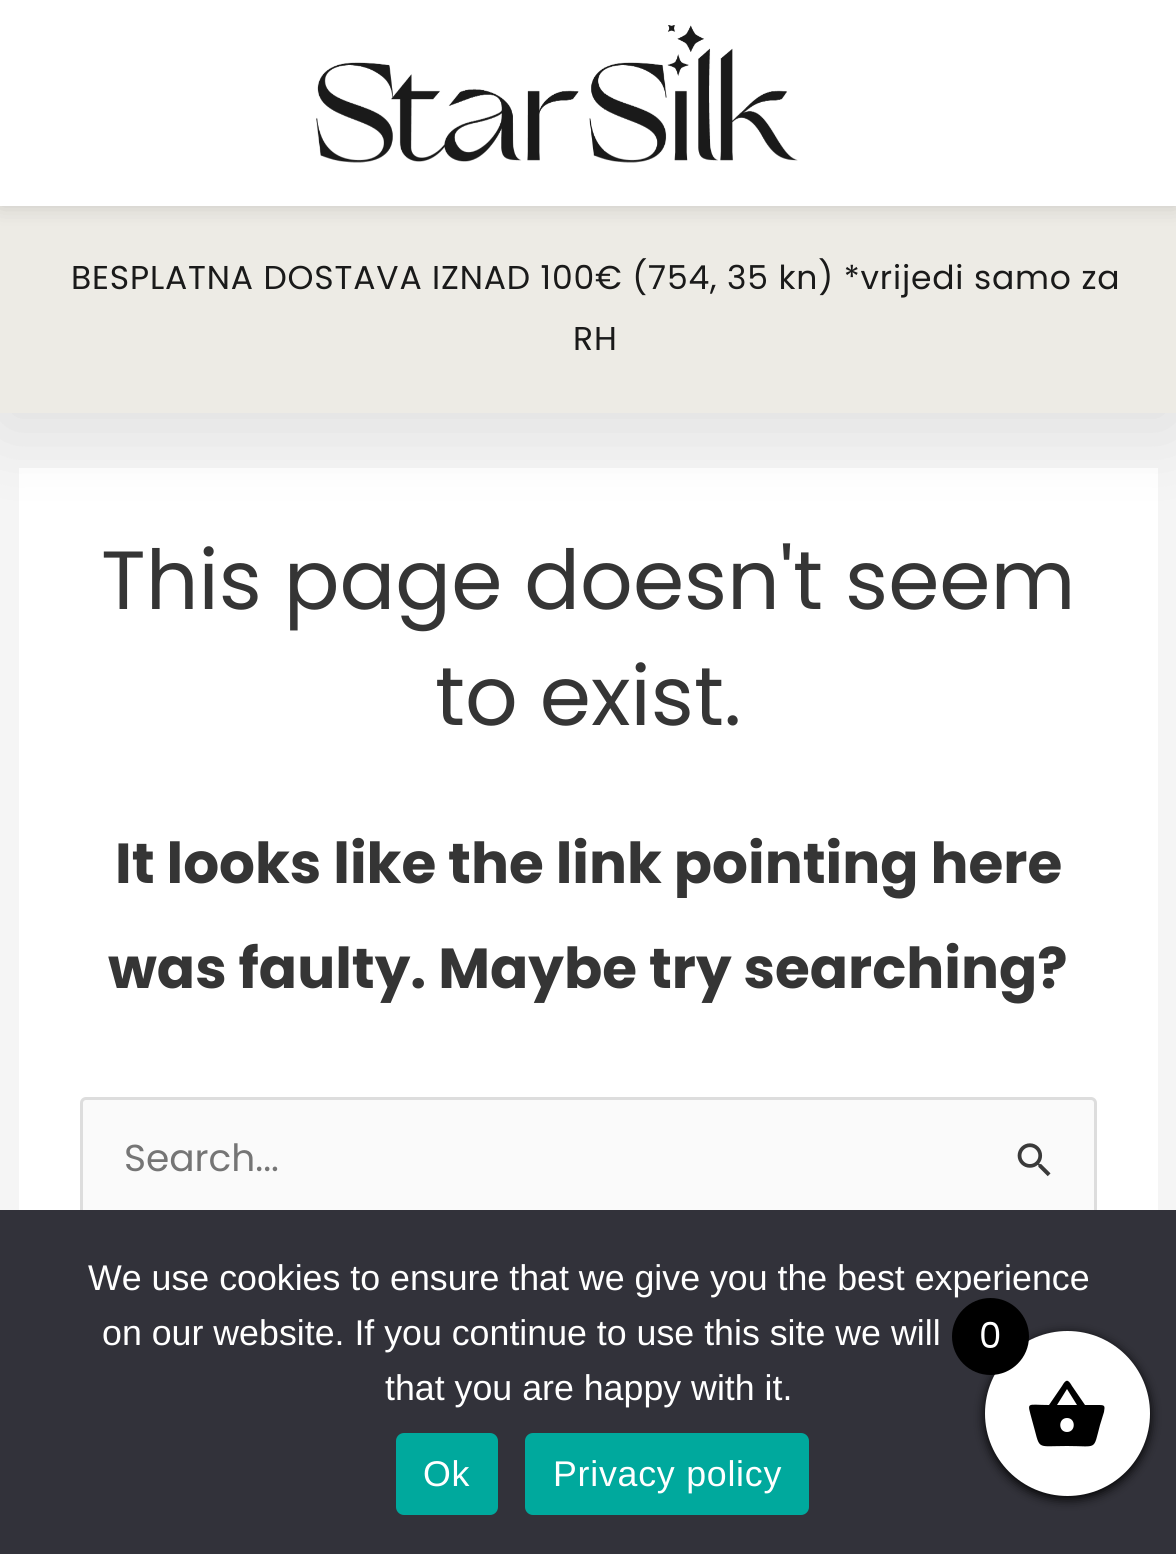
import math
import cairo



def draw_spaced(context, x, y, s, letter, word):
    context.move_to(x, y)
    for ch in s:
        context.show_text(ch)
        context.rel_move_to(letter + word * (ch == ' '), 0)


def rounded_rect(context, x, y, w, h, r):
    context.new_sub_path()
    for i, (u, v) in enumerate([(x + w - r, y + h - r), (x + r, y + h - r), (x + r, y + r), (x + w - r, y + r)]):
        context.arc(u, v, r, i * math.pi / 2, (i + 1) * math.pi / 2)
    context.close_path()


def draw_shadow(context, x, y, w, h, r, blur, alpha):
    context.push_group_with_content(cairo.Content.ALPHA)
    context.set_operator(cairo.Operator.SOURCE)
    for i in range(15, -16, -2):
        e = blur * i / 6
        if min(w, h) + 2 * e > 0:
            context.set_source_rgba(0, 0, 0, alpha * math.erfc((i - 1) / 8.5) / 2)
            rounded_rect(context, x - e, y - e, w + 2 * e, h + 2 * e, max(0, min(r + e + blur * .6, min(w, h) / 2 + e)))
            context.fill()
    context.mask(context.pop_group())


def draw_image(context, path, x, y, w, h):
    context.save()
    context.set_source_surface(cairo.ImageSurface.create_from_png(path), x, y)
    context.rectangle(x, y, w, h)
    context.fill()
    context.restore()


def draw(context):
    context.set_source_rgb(245 / 255, 245 / 255, 245 / 255)
    context.paint()
    context.set_source_rgb(1, 1, 1)
    context.rectangle(19, 468, 1139, 742)
    context.fill()
    context.set_source_rgb(0, 0, 0)
    draw_shadow(context, 0, 220, 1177, 206, 0, 41, 0.1)
    context.set_source_rgb(237 / 255, 235 / 255, 229 / 255)
    context.rectangle(0, 206, 1176, 207)
    context.fill()
    context.set_source_rgb(0, 0, 0)
    draw_shadow(context, 0, 0, 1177, 206, 0, 11, 0.15)
    context.set_source_rgb(1, 1, 1)
    context.rectangle(0, 0, 1176, 206)
    context.fill()
    draw_image(context, "images/1.png", 316, 25, 482, 138)
    context.set_source_rgb(250 / 255, 250 / 255, 250 / 255)
    rounded_rect(context, 81.5, 1098.5, 1014, 124, 4.5)
    context.fill_preserve()
    context.set_source_rgb(221 / 255, 221 / 255, 221 / 255)
    context.set_line_width(3)
    context.stroke()
    draw_image(context, "images/2.png", 1017, 1143, 34, 34)
    context.set_source_rgb(50 / 255, 50 / 255, 58 / 255)
    context.rectangle(0, 1210, 1176, 344)
    context.fill()
    context.set_source_rgb(0, 169 / 255, 157 / 255)
    rounded_rect(context, 396, 1433, 102, 82, 8)
    context.fill()
    rounded_rect(context, 525, 1433, 284, 82, 8)
    context.fill()
    context.set_source_rgb(0, 0, 0)
    draw_shadow(context, 985, 1334, 165, 165, 82.5, 5.5, 1)
    context.set_source_rgb(1, 1, 1)
    context.arc(1067.5, 1413.5, 82.5, 0, 2 * math.pi)
    context.fill()
    context.set_source_rgb(0, 0, 0)
    context.arc(990.5, 1336.5, 38.5, 0, 2 * math.pi)
    context.fill()
    context.new_path()
    context.move_to(1067, 1432)
    context.curve_to(1076, 1432, 1076, 1418, 1067, 1418)
    context.curve_to(1058, 1418, 1058, 1432, 1067, 1432)
    context.close_path()
    context.move_to(1057, 1405)
    context.line_to(1077, 1405)
    context.line_to(1067, 1389)
    context.close_path()
    context.move_to(1085, 1405)
    context.line_to(1099, 1405)
    context.curve_to(1105, 1405, 1105, 1406, 1104, 1412)
    context.line_to(1100, 1425)
    context.curve_to(1093, 1451, 1098, 1446, 1067, 1446)
    context.curve_to(1034, 1446, 1041, 1451, 1032, 1420)
    context.curve_to(1027, 1401, 1026, 1405, 1049, 1405)
    context.line_to(1062, 1386)
    context.curve_to(1066, 1379, 1068, 1379, 1072, 1386)
    context.close_path()
    context.fill()
    context.select_font_face("Poppins")
    context.set_font_size(33)
    context.set_source_rgb(26 / 255, 26 / 255, 26 / 255)
    draw_spaced(context, 71, 289, "BESPLATNA DOSTAVA IZNAD 100€ (754, 35 kn) *vrijedi samo za", 0.82, 0)
    draw_spaced(context, 573, 350, "RH", 0.82, 0)
    context.set_font_size(82.5)
    context.set_source_rgb(53 / 255, 53 / 255, 53 / 255)
    context.move_to(101, 609)
    context.show_text("This page doesn't seem")
    context.move_to(435, 725)
    context.show_text("to exist.")
    context.select_font_face("Poppins", cairo.FontSlant.NORMAL, cairo.FontWeight.BOLD)
    context.set_font_size(56.4)
    context.move_to(115, 883)
    context.show_text("It looks like the link pointing here")
    context.move_to(108, 988)
    context.show_text("was faulty. Maybe try searching?")
    context.select_font_face("Poppins")
    context.set_font_size(37.5)
    context.set_source_rgb(117 / 255, 117 / 255, 117 / 255)
    context.move_to(124, 1171)
    context.show_text("Search...")
    context.select_font_face("Liberation Sans")
    context.set_font_size(35.75)
    context.set_source_rgb(1, 1, 1)
    context.move_to(88, 1290)
    context.show_text("We use cookies to ensure that we give you the best experience")
    context.move_to(102, 1345)
    context.show_text("on our website. If you continue to use this site we will")
    context.move_to(385, 1400)
    context.show_text("that you are happy with it.")
    draw_spaced(context, 423, 1486, "Ok", 0.75, 0)
    draw_spaced(context, 553, 1486, "Privacy policy", 0.75, 0)
    context.select_font_face("Poppins")
    context.move_to(979, 1348)
    context.show_text("0")


surface = cairo.ImageSurface(cairo.Format.RGB24, 1176, 1554)
context = cairo.Context(surface)
options = cairo.FontOptions()
options.set_hint_metrics(cairo.HintMetrics.OFF)
options.set_hint_style(cairo.HintStyle.NONE)
context.set_font_options(options)
context.set_miter_limit(4)
draw(context)
surface.write_to_png("out.png")
